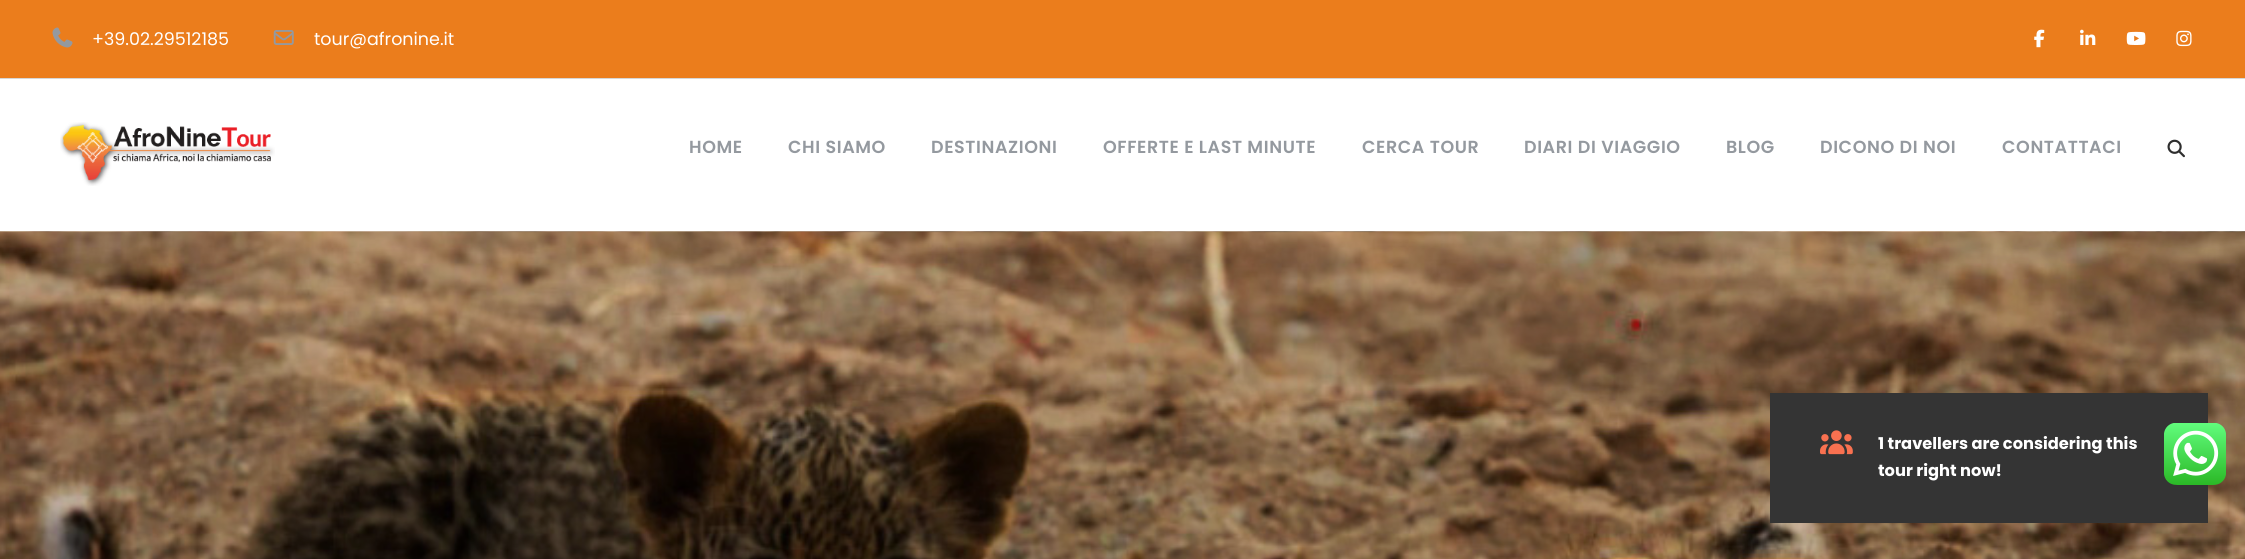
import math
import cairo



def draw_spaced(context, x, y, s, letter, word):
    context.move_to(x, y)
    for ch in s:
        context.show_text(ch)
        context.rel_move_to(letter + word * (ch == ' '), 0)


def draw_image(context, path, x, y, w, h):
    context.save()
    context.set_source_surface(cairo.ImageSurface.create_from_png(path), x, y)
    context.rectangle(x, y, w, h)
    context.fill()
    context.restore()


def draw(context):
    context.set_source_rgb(1, 1, 1)
    context.paint()
    context.set_source_rgb(214 / 255, 214 / 255, 214 / 255)
    context.rectangle(0, 78, 2245, 1)
    context.fill()
    context.set_source_rgb(235 / 255, 125 / 255, 28 / 255)
    context.rectangle(0, 0, 2245, 78)
    context.fill()
    draw_image(context, "images/1.png", 52, 27, 21, 21)
    draw_image(context, "images/2.png", 273, 30, 21, 15)
    draw_image(context, "images/3.png", 2034, 29, 11, 19)
    draw_image(context, "images/4.png", 2080, 29, 16, 16)
    draw_image(context, "images/5.png", 2126, 31, 20, 14)
    draw_image(context, "images/6.png", 2176, 30, 16, 17)
    draw_image(context, "images/7.png", 60, 122, 215, 64)
    draw_image(context, "images/8.png", 2167, 139, 18, 19)
    draw_image(context, "images/9.png", 0, 231, 2245, 328)
    context.set_source_rgb(52 / 255, 52 / 255, 52 / 255)
    context.rectangle(1770, 393, 438, 130)
    context.fill()
    draw_image(context, "images/10.png", 1820, 430, 33, 25)
    draw_image(context, "images/11.png", 2164, 423, 62, 62)
    context.select_font_face("Poppins")
    context.set_font_size(17.5)
    context.set_source_rgb(1, 1, 1)
    context.move_to(92, 45)
    context.show_text("+39.02.29512185")
    context.move_to(314, 45)
    context.show_text("tour@afronine.it")
    context.select_font_face("Poppins SemiBold")
    context.set_source_rgb(148 / 255, 153 / 255, 159 / 255)
    draw_spaced(context, 689, 153, "HOME", 0.6, 0)
    draw_spaced(context, 788, 153, "CHI SIAMO", 0.6, 0)
    draw_spaced(context, 931, 153, "DESTINAZIONI", 0.6, 0)
    draw_spaced(context, 1103, 153, "OFFERTE E LAST MINUTE", 0.6, 0)
    draw_spaced(context, 1362, 153, "CERCA TOUR", 0.6, 0)
    draw_spaced(context, 1524, 153, "DIARI DI VIAGGIO", 0.6, 0)
    draw_spaced(context, 1726, 153, "BLOG", 0.6, 0)
    draw_spaced(context, 1820, 153, "DICONO DI NOI", 0.6, 0)
    draw_spaced(context, 2002, 153, "CONTATTACI", 0.6, 0)
    context.select_font_face("Poppins", cairo.FontSlant.NORMAL, cairo.FontWeight.BOLD)
    context.set_font_size(16.25)
    context.set_source_rgb(1, 1, 1)
    context.move_to(1878, 449)
    context.show_text("1 travellers are considering this")
    context.move_to(1878, 476)
    context.show_text("tour right now!")


surface = cairo.ImageSurface(cairo.Format.RGB24, 2245, 559)
context = cairo.Context(surface)
options = cairo.FontOptions()
options.set_hint_metrics(cairo.HintMetrics.OFF)
options.set_hint_style(cairo.HintStyle.NONE)
context.set_font_options(options)
context.set_miter_limit(4)
draw(context)
surface.write_to_png("out.png")
